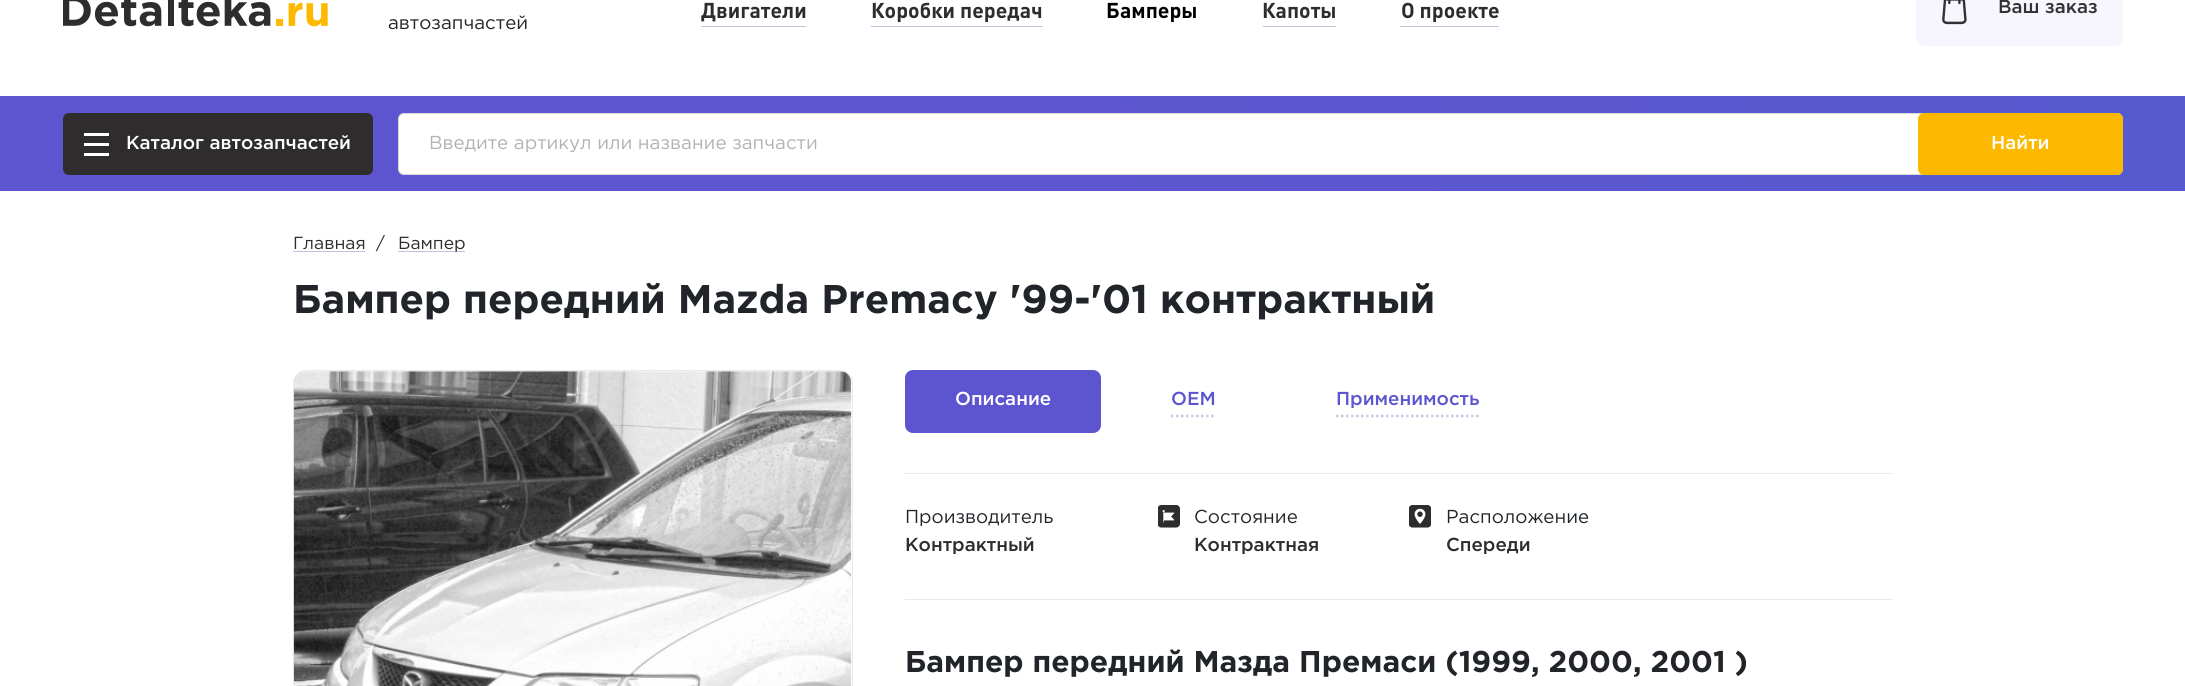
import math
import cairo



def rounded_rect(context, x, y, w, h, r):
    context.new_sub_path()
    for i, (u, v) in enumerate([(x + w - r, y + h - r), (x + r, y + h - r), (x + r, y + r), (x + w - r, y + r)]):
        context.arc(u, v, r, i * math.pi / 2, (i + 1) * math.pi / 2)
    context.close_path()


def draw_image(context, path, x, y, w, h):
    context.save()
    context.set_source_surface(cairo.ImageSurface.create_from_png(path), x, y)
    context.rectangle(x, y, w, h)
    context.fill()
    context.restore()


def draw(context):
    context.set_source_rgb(1, 1, 1)
    context.paint()
    draw_image(context, "images/1.png", 63, 0, 265, 27)
    context.set_source_rgb(189 / 255, 197 / 255, 222 / 255)
    context.rectangle(701, 26, 105, 1)
    context.fill()
    context.rectangle(871, 26, 172, 1)
    context.fill()
    context.rectangle(1263, 26, 73, 1)
    context.fill()
    context.rectangle(1400, 26, 99, 1)
    context.fill()
    context.set_source_rgb(247 / 255, 246 / 255, 1)
    rounded_rect(context, 1916, -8, 207, 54, 8)
    context.fill()
    draw_image(context, "images/2.png", 1942, 0, 25, 25)
    gradient = cairo.LinearGradient(2.5, 225, 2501, 39)
    gradient.add_color_stop_rgba(0.39, 93 / 255, 85 / 255, 207 / 255, 1)
    gradient.add_color_stop_rgba(1, 85 / 255, 90 / 255, 207 / 255, 1)
    context.set_source(gradient)
    context.rectangle(0, 96, 2185, 95)
    context.fill()
    context.set_source_rgb(46 / 255, 44 / 255, 45 / 255)
    rounded_rect(context, 63, 113, 310, 62, 6)
    context.fill()
    context.set_source_rgb(1, 1, 1)
    context.rectangle(84, 143, 25, 3)
    context.fill()
    context.rectangle(84, 133, 25, 3)
    context.fill()
    context.rectangle(84, 153, 25, 3)
    context.fill()
    rounded_rect(context, 398.5, 113.5, 1724, 61, 5.5)
    context.fill_preserve()
    context.set_source_rgb(217 / 255, 217 / 255, 217 / 255)
    context.set_line_width(1)
    context.stroke()
    context.set_source_rgb(253 / 255, 184 / 255, 0)
    rounded_rect(context, 1918, 113, 205, 62, 6)
    context.fill()
    context.set_source_rgb(189 / 255, 197 / 255, 222 / 255)
    context.rectangle(293, 251, 72, 1)
    context.fill()
    context.rectangle(398, 251, 67, 1)
    context.fill()
    rounded_rect(context, 293.5, 370.5, 559, 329, 12.5)
    context.set_source_rgb(233 / 255, 233 / 255, 233 / 255)
    context.stroke()
    draw_image(context, "images/3.png", 293, 371, 559, 315)
    context.set_source_rgb(93 / 255, 85 / 255, 207 / 255)
    rounded_rect(context, 905, 370, 196, 63, 8)
    context.fill()
    context.new_path()
    context.move_to(1171, 416)
    context.line_to(1216, 416)
    context.set_source_rgb(203 / 255, 200 / 255, 225 / 255)
    context.set_line_width(2.5)
    context.set_dash([2.5, 2.5])
    context.stroke()
    context.new_path()
    context.move_to(1336, 416)
    context.line_to(1479, 416)
    context.stroke()
    context.set_source_rgb(233 / 255, 233 / 255, 233 / 255)
    context.rectangle(905, 473, 988, 1)
    context.fill()
    context.rectangle(905, 599, 988, 1)
    context.fill()
    draw_image(context, "images/4.png", 1158, 505, 22, 23)
    draw_image(context, "images/5.png", 1409, 505, 22, 23)
    context.select_font_face("Gotham")
    context.set_font_size(18.75)
    context.set_source_rgb(33 / 255, 37 / 255, 41 / 255)
    context.move_to(388, 29)
    context.show_text("автозапчастей")
    context.select_font_face("DIN", cairo.FontSlant.NORMAL, cairo.FontWeight.BOLD)
    context.set_font_size(21.25)
    context.set_source_rgb(46 / 255, 44 / 255, 45 / 255)
    context.move_to(701, 18)
    context.show_text("Двигатели")
    context.move_to(871, 18)
    context.show_text("Коробки передач")
    context.set_source_rgb(0, 0, 0)
    context.move_to(1106, 18)
    context.show_text("Бамперы")
    context.set_source_rgb(46 / 255, 44 / 255, 45 / 255)
    context.move_to(1262, 18)
    context.show_text("Капоты")
    context.move_to(1401, 18)
    context.show_text("О проекте")
    context.select_font_face("Gotham Medium")
    context.set_font_size(18.75)
    context.set_source_rgb(50 / 255, 50 / 255, 50 / 255)
    context.move_to(1998, 13)
    context.show_text("Ваш заказ")
    context.set_source_rgb(1, 1, 1)
    context.move_to(126, 149)
    context.show_text("Каталог автозапчастей")
    context.select_font_face("Gotham")
    context.set_source_rgb(178 / 255, 178 / 255, 178 / 255)
    context.move_to(429, 149)
    context.show_text("Введите артикул или название запчасти")
    context.select_font_face("Gotham Medium")
    context.set_source_rgb(1, 1, 1)
    context.move_to(1991, 149)
    context.show_text("Найти")
    context.select_font_face("Gotham")
    context.set_font_size(17.5)
    context.set_source_rgb(46 / 255, 44 / 255, 45 / 255)
    context.move_to(293, 249)
    context.show_text("Главная")
    context.move_to(376, 249)
    context.show_text("/")
    context.move_to(398, 249)
    context.show_text("Бампер")
    context.select_font_face("Gotham", cairo.FontSlant.NORMAL, cairo.FontWeight.BOLD)
    context.set_font_size(40)
    context.set_source_rgb(33 / 255, 37 / 255, 41 / 255)
    context.move_to(293, 313)
    context.show_text("Бампер передний Mazda Premacy '99-'01 контрактный")
    context.select_font_face("Gotham Medium")
    context.set_font_size(18.75)
    context.set_source_rgb(1, 1, 1)
    context.move_to(955, 405)
    context.show_text("Описание")
    context.set_source_rgb(93 / 255, 85 / 255, 207 / 255)
    context.move_to(1171, 405)
    context.show_text("OEM")
    context.move_to(1336, 405)
    context.show_text("Применимость")
    context.select_font_face("Gotham")
    context.set_source_rgb(33 / 255, 37 / 255, 41 / 255)
    context.move_to(905, 523)
    context.show_text("Производитель")
    context.select_font_face("Gotham Medium")
    context.set_source_rgb(46 / 255, 44 / 255, 45 / 255)
    context.move_to(905, 551)
    context.show_text("Контрактный")
    context.select_font_face("Gotham")
    context.set_source_rgb(33 / 255, 37 / 255, 41 / 255)
    context.move_to(1194, 523)
    context.show_text("Состояние")
    context.select_font_face("Gotham Medium")
    context.set_source_rgb(46 / 255, 44 / 255, 45 / 255)
    context.move_to(1194, 551)
    context.show_text("Контрактная")
    context.select_font_face("Gotham")
    context.set_source_rgb(33 / 255, 37 / 255, 41 / 255)
    context.move_to(1446, 523)
    context.show_text("Расположение")
    context.select_font_face("Gotham Medium")
    context.set_source_rgb(46 / 255, 44 / 255, 45 / 255)
    context.move_to(1446, 551)
    context.show_text("Спереди")
    context.select_font_face("Gotham", cairo.FontSlant.NORMAL, cairo.FontWeight.BOLD)
    context.set_font_size(30)
    context.set_source_rgb(33 / 255, 37 / 255, 41 / 255)
    context.move_to(905, 672)
    context.show_text("Бампер передний Мазда Премаси (1999, 2000, 2001 )")


surface = cairo.ImageSurface(cairo.Format.RGB24, 2185, 686)
context = cairo.Context(surface)
options = cairo.FontOptions()
options.set_hint_metrics(cairo.HintMetrics.OFF)
options.set_hint_style(cairo.HintStyle.NONE)
context.set_font_options(options)
context.set_miter_limit(4)
draw(context)
surface.write_to_png("out.png")
